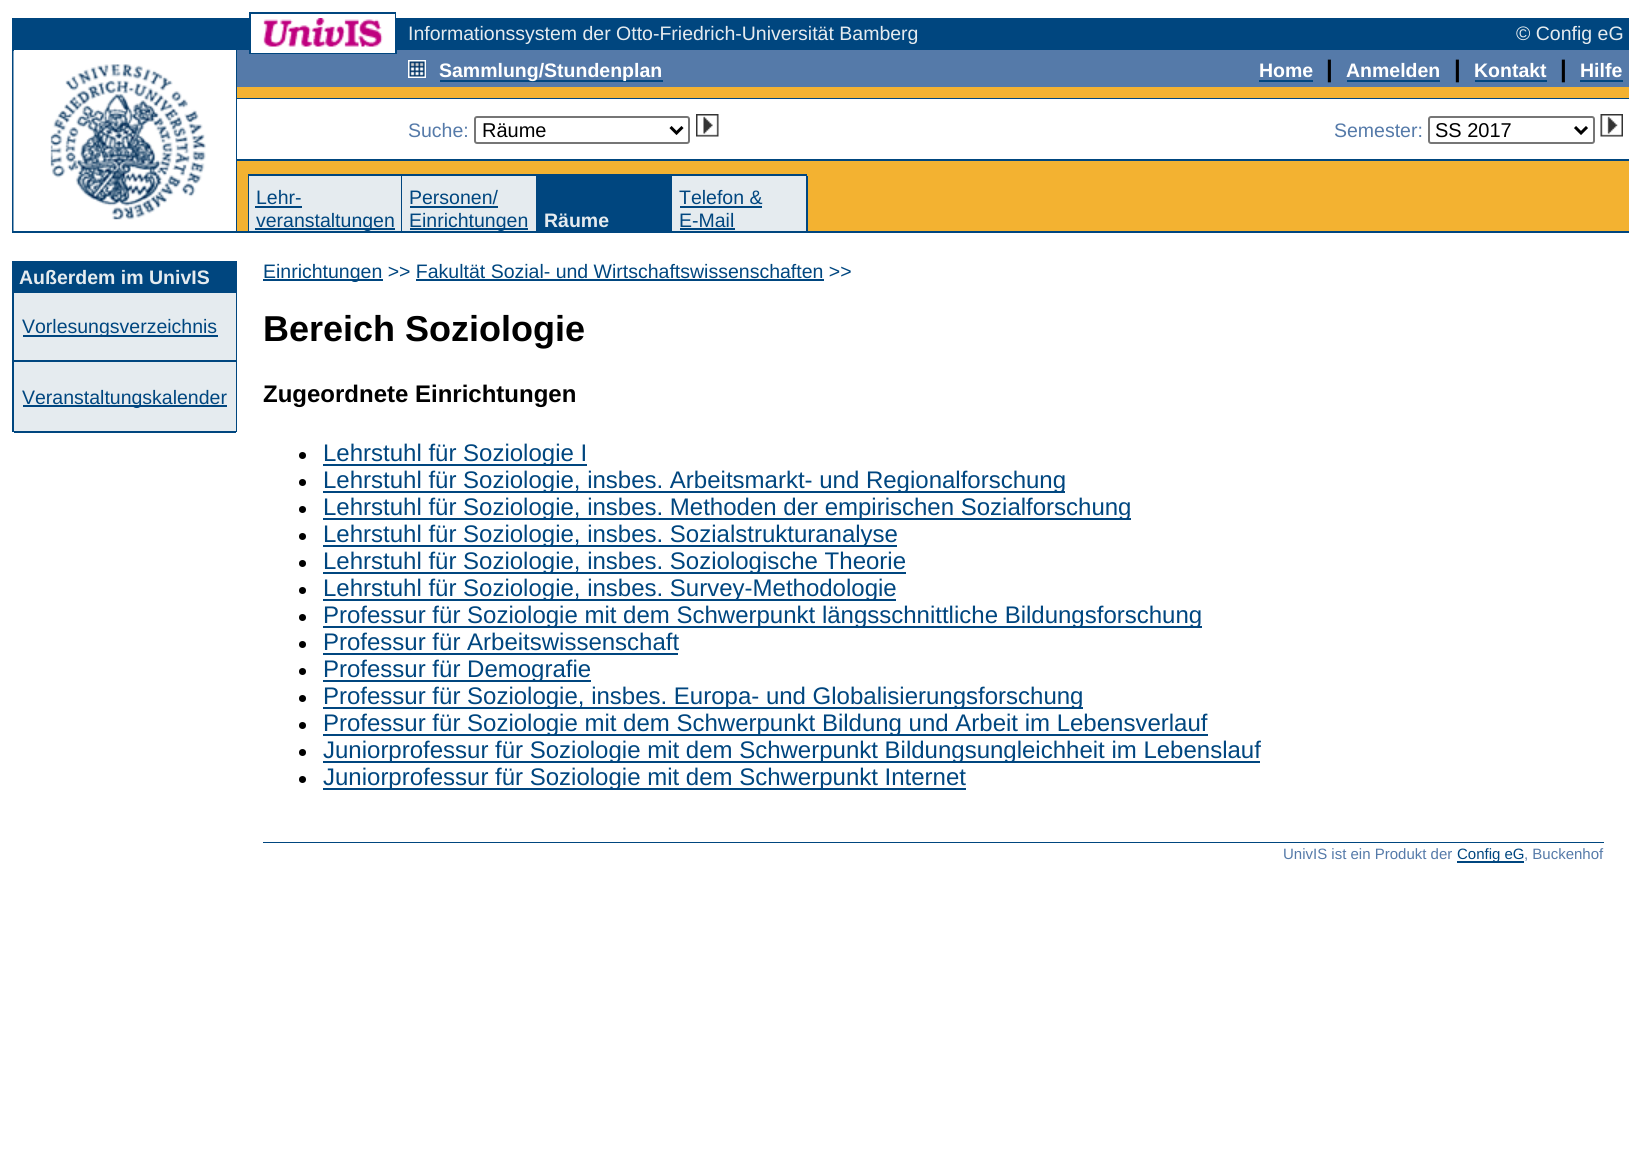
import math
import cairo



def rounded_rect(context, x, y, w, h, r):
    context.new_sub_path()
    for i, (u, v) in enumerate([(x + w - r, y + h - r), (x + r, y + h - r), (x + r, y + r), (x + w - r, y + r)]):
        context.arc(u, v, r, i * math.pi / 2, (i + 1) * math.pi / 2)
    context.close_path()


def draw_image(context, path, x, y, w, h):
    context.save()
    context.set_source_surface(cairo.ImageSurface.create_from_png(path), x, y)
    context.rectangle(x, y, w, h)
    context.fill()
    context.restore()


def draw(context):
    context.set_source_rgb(1, 1, 1)
    context.paint()
    context.set_source_rgb(0, 70 / 255, 127 / 255)
    context.rectangle(249, 12, 148, 2)
    context.fill()
    context.set_source_rgb(1, 1, 1)
    context.rectangle(396, 12, 1, 2)
    context.fill()
    context.set_source_rgb(0, 70 / 255, 127 / 255)
    context.rectangle(249, 14, 2, 5)
    context.fill()
    context.rectangle(395, 14, 1, 34)
    context.fill()
    context.rectangle(12, 18, 239, 30)
    context.fill()
    draw_image(context, "images/1.png", 263, 18, 120, 29)
    context.rectangle(396, 18, 1233, 30)
    context.fill()
    context.rectangle(12, 48, 1617, 2)
    context.fill()
    context.set_source_rgb(1, 1, 1)
    context.rectangle(251, 48, 144, 2)
    context.fill()
    context.set_source_rgb(0, 70 / 255, 127 / 255)
    context.rectangle(12, 50, 2, 183)
    context.fill()
    context.rectangle(236, 50, 1, 181)
    context.fill()
    draw_image(context, "images/2.png", 13, 51, 193, 180)
    context.set_source_rgb(243 / 255, 178 / 255, 49 / 255)
    context.rectangle(237, 87, 1392, 144)
    context.fill()
    context.set_source_rgb(85 / 255, 122 / 255, 169 / 255)
    context.rectangle(237, 50, 1392, 3)
    context.fill()
    context.set_source_rgb(0, 70 / 255, 127 / 255)
    context.rectangle(249, 50, 2, 3)
    context.fill()
    context.set_source_rgb(1, 1, 1)
    context.rectangle(251, 50, 144, 3)
    context.fill()
    context.set_source_rgb(0, 70 / 255, 127 / 255)
    context.rectangle(395, 50, 2, 3)
    context.fill()
    context.set_source_rgb(85 / 255, 122 / 255, 169 / 255)
    context.rectangle(237, 53, 1392, 3)
    context.fill()
    context.set_source_rgb(0, 70 / 255, 127 / 255)
    context.rectangle(249, 53, 148, 1)
    context.fill()
    context.set_source_rgb(85 / 255, 122 / 255, 169 / 255)
    context.rectangle(237, 56, 1392, 31)
    context.fill()
    draw_image(context, "images/3.png", 408, 60, 18, 18)
    context.set_source_rgb(0, 70 / 255, 127 / 255)
    context.rectangle(440, 80, 223, 2)
    context.fill()
    context.rectangle(1259, 80, 54, 2)
    context.fill()
    context.rectangle(1347, 80, 93, 2)
    context.fill()
    context.rectangle(1475, 80, 72, 2)
    context.fill()
    context.rectangle(1580, 80, 43, 2)
    context.fill()
    context.rectangle(237, 98, 1392, 1)
    context.fill()
    context.set_source_rgb(1, 1, 1)
    context.rectangle(237, 99, 1392, 60)
    context.fill()
    rounded_rect(context, 475, 117, 214, 26, 2)
    context.set_source_rgb(118 / 255, 118 / 255, 118 / 255)
    context.stroke()
    context.new_path()
    context.move_to(670.5, 127)
    context.line_to(676.5, 133)
    context.line_to(682.5, 127)
    context.set_source_rgb(0, 0, 0)
    context.set_line_width(3)
    context.stroke()
    draw_image(context, "images/4.png", 696, 114, 23, 23)
    rounded_rect(context, 1429, 117, 165, 26, 2)
    context.set_source_rgb(118 / 255, 118 / 255, 118 / 255)
    context.set_line_width(2)
    context.stroke()
    context.new_path()
    context.move_to(1575, 127)
    context.line_to(1581, 133)
    context.line_to(1587, 127)
    context.set_source_rgb(0, 0, 0)
    context.set_line_width(3)
    context.stroke()
    draw_image(context, "images/5.png", 1600, 114, 23, 23)
    context.set_source_rgb(0, 70 / 255, 127 / 255)
    context.rectangle(237, 159, 1392, 2)
    context.fill()
    context.rectangle(248, 174, 559, 2)
    context.fill()
    context.rectangle(248, 176, 1, 55)
    context.fill()
    context.set_source_rgb(229 / 255, 235 / 255, 239 / 255)
    context.rectangle(249, 176, 152, 55)
    context.fill()
    context.set_source_rgb(0, 70 / 255, 127 / 255)
    context.rectangle(401, 176, 1, 55)
    context.fill()
    context.set_source_rgb(229 / 255, 235 / 255, 239 / 255)
    context.rectangle(402, 176, 134, 55)
    context.fill()
    context.set_source_rgb(0, 70 / 255, 127 / 255)
    context.rectangle(536, 176, 136, 55)
    context.fill()
    context.set_source_rgb(229 / 255, 235 / 255, 239 / 255)
    context.rectangle(672, 176, 134, 55)
    context.fill()
    context.set_source_rgb(0, 70 / 255, 127 / 255)
    context.rectangle(806, 176, 2, 55)
    context.fill()
    context.rectangle(255, 206, 47, 2)
    context.fill()
    context.rectangle(255, 228, 140, 2)
    context.fill()
    context.rectangle(410, 206, 88, 2)
    context.fill()
    context.rectangle(410, 228, 118, 2)
    context.fill()
    context.rectangle(680, 206, 82, 2)
    context.fill()
    context.rectangle(680, 228, 55, 2)
    context.fill()
    context.rectangle(14, 231, 1615, 2)
    context.fill()
    context.rectangle(12, 261, 2, 171)
    context.fill()
    context.rectangle(14, 261, 222, 32)
    context.fill()
    context.rectangle(236, 261, 1, 171)
    context.fill()
    context.set_source_rgb(229 / 255, 235 / 255, 239 / 255)
    context.rectangle(14, 293, 222, 67)
    context.fill()
    context.set_source_rgb(0, 70 / 255, 127 / 255)
    context.rectangle(23, 335, 195, 2)
    context.fill()
    context.rectangle(14, 360, 222, 2)
    context.fill()
    context.set_source_rgb(229 / 255, 235 / 255, 239 / 255)
    context.rectangle(14, 362, 222, 1)
    context.fill()
    context.rectangle(14, 363, 222, 68)
    context.fill()
    context.set_source_rgb(0, 70 / 255, 127 / 255)
    context.rectangle(23, 405, 204, 2)
    context.fill()
    context.rectangle(14, 431, 222, 2)
    context.fill()
    context.rectangle(263, 279, 120, 2)
    context.fill()
    context.rectangle(416, 279, 408, 2)
    context.fill()
    context.set_source_rgb(0, 0, 0)
    context.arc(302.5, 455.5, 3.5, 0, 2 * math.pi)
    context.fill()
    context.set_source_rgb(0, 70 / 255, 127 / 255)
    context.rectangle(323, 464, 264, 2)
    context.fill()
    context.set_source_rgb(0, 0, 0)
    context.arc(302.5, 482.5, 3.5, 0, 2 * math.pi)
    context.fill()
    context.set_source_rgb(0, 70 / 255, 127 / 255)
    context.rectangle(323, 491, 742, 2)
    context.fill()
    context.set_source_rgb(0, 0, 0)
    context.arc(302.5, 509.5, 3.5, 0, 2 * math.pi)
    context.fill()
    context.set_source_rgb(0, 70 / 255, 127 / 255)
    context.rectangle(323, 518, 808, 2)
    context.fill()
    context.set_source_rgb(0, 0, 0)
    context.arc(302.5, 536.5, 3.5, 0, 2 * math.pi)
    context.fill()
    context.set_source_rgb(0, 70 / 255, 127 / 255)
    context.rectangle(323, 545, 574, 2)
    context.fill()
    context.set_source_rgb(0, 0, 0)
    context.arc(302.5, 563.5, 3.5, 0, 2 * math.pi)
    context.fill()
    context.set_source_rgb(0, 70 / 255, 127 / 255)
    context.rectangle(323, 572, 583, 2)
    context.fill()
    context.set_source_rgb(0, 0, 0)
    context.arc(302.5, 590.5, 3.5, 0, 2 * math.pi)
    context.fill()
    context.set_source_rgb(0, 70 / 255, 127 / 255)
    context.rectangle(323, 599, 573, 2)
    context.fill()
    context.set_source_rgb(0, 0, 0)
    context.arc(302.5, 617.5, 3.5, 0, 2 * math.pi)
    context.fill()
    context.set_source_rgb(0, 70 / 255, 127 / 255)
    context.rectangle(323, 626, 879, 2)
    context.fill()
    context.set_source_rgb(0, 0, 0)
    context.arc(302.5, 644.5, 3.5, 0, 2 * math.pi)
    context.fill()
    context.set_source_rgb(0, 70 / 255, 127 / 255)
    context.rectangle(323, 653, 355, 2)
    context.fill()
    context.set_source_rgb(0, 0, 0)
    context.arc(302.5, 671.5, 3.5, 0, 2 * math.pi)
    context.fill()
    context.set_source_rgb(0, 70 / 255, 127 / 255)
    context.rectangle(323, 680, 268, 2)
    context.fill()
    context.set_source_rgb(0, 0, 0)
    context.arc(302.5, 698.5, 3.5, 0, 2 * math.pi)
    context.fill()
    context.set_source_rgb(0, 70 / 255, 127 / 255)
    context.rectangle(323, 707, 760, 2)
    context.fill()
    context.set_source_rgb(0, 0, 0)
    context.arc(302.5, 725.5, 3.5, 0, 2 * math.pi)
    context.fill()
    context.set_source_rgb(0, 70 / 255, 127 / 255)
    context.rectangle(323, 734, 885, 2)
    context.fill()
    context.set_source_rgb(0, 0, 0)
    context.arc(302.5, 752.5, 3.5, 0, 2 * math.pi)
    context.fill()
    context.set_source_rgb(0, 70 / 255, 127 / 255)
    context.rectangle(323, 761, 937, 2)
    context.fill()
    context.set_source_rgb(0, 0, 0)
    context.arc(302.5, 779.5, 3.5, 0, 2 * math.pi)
    context.fill()
    context.set_source_rgb(0, 70 / 255, 127 / 255)
    context.rectangle(323, 788, 643, 2)
    context.fill()
    context.rectangle(263, 842, 1341, 1)
    context.fill()
    context.rectangle(1457, 861, 67, 2)
    context.fill()
    context.select_font_face("Liberation Sans")
    context.set_font_size(19.5)
    context.set_source_rgb(229 / 255, 235 / 255, 239 / 255)
    context.move_to(408, 40)
    context.show_text("Informationssystem der Otto-Friedrich-Universität Bamberg")
    context.move_to(1516, 40)
    context.show_text("© Config eG")
    context.select_font_face("Liberation Sans", cairo.FontSlant.NORMAL, cairo.FontWeight.BOLD)
    context.set_source_rgb(1, 1, 1)
    context.move_to(439, 77)
    context.show_text("Sammlung/Stundenplan")
    context.move_to(1259, 77)
    context.show_text("Home")
    context.set_font_size(24)
    context.set_source_rgb(0, 0, 0)
    context.move_to(1326, 77)
    context.show_text("|")
    context.set_font_size(19.5)
    context.set_source_rgb(1, 1, 1)
    context.move_to(1346, 77)
    context.show_text("Anmelden")
    context.set_font_size(24)
    context.set_source_rgb(0, 0, 0)
    context.move_to(1454, 77)
    context.show_text("|")
    context.set_font_size(19.5)
    context.set_source_rgb(1, 1, 1)
    context.move_to(1474, 77)
    context.show_text("Kontakt")
    context.set_font_size(24)
    context.set_source_rgb(0, 0, 0)
    context.move_to(1560, 77)
    context.show_text("|")
    context.set_font_size(19.5)
    context.set_source_rgb(1, 1, 1)
    context.move_to(1580, 77)
    context.show_text("Hilfe")
    context.select_font_face("Liberation Sans")
    context.set_source_rgb(85 / 255, 122 / 255, 169 / 255)
    context.move_to(408, 137)
    context.show_text("Suche:")
    context.set_font_size(20)
    context.set_source_rgb(0, 0, 0)
    context.move_to(482, 137)
    context.show_text("Räume")
    context.set_font_size(19.5)
    context.set_source_rgb(85 / 255, 122 / 255, 169 / 255)
    context.move_to(1334, 137)
    context.show_text("Semester:")
    context.set_font_size(20)
    context.set_source_rgb(0, 0, 0)
    context.move_to(1435, 137)
    context.show_text("SS 2017")
    context.set_font_size(19.5)
    context.set_source_rgb(0, 70 / 255, 127 / 255)
    context.move_to(256, 204)
    context.show_text("Lehr-")
    context.move_to(256, 227)
    context.show_text("veranstaltungen")
    context.move_to(409, 204)
    context.show_text("Personen/")
    context.move_to(409, 227)
    context.show_text("Einrichtungen")
    context.select_font_face("Liberation Sans", cairo.FontSlant.NORMAL, cairo.FontWeight.BOLD)
    context.set_source_rgb(229 / 255, 235 / 255, 239 / 255)
    context.move_to(544, 227)
    context.show_text("Räume")
    context.select_font_face("Liberation Sans")
    context.set_source_rgb(0, 70 / 255, 127 / 255)
    context.move_to(679, 204)
    context.show_text("Telefon &")
    context.move_to(679, 227)
    context.show_text("E-Mail")
    context.select_font_face("Liberation Sans", cairo.FontSlant.NORMAL, cairo.FontWeight.BOLD)
    context.set_source_rgb(229 / 255, 235 / 255, 239 / 255)
    context.move_to(19, 284)
    context.show_text("Außerdem im UnivIS")
    context.select_font_face("Liberation Sans")
    context.set_source_rgb(0, 70 / 255, 127 / 255)
    context.move_to(22, 333)
    context.show_text("Vorlesungsverzeichnis")
    context.move_to(22, 404)
    context.show_text("Veranstaltungskalender")
    context.move_to(263, 278)
    context.show_text("Einrichtungen >> Fakultät Sozial- und Wirtschaftswissenschaften >>")
    context.select_font_face("Liberation Sans", cairo.FontSlant.NORMAL, cairo.FontWeight.BOLD)
    context.set_font_size(36)
    context.set_source_rgb(0, 0, 0)
    context.move_to(263, 341)
    context.show_text("Bereich Soziologie")
    context.set_font_size(24)
    context.move_to(263, 402)
    context.show_text("Zugeordnete Einrichtungen")
    context.select_font_face("Liberation Sans")
    context.set_source_rgb(0, 70 / 255, 127 / 255)
    context.move_to(323, 461)
    context.show_text("Lehrstuhl für Soziologie I")
    context.move_to(323, 488)
    context.show_text("Lehrstuhl für Soziologie, insbes. Arbeitsmarkt- und Regionalforschung")
    context.move_to(323, 515)
    context.show_text("Lehrstuhl für Soziologie, insbes. Methoden der empirischen Sozialforschung")
    context.move_to(323, 542)
    context.show_text("Lehrstuhl für Soziologie, insbes. Sozialstrukturanalyse")
    context.move_to(323, 569)
    context.show_text("Lehrstuhl für Soziologie, insbes. Soziologische Theorie")
    context.move_to(323, 596)
    context.show_text("Lehrstuhl für Soziologie, insbes. Survey-Methodologie")
    context.move_to(323, 623)
    context.show_text("Professur für Soziologie mit dem Schwerpunkt längsschnittliche Bildungsforschung")
    context.move_to(323, 650)
    context.show_text("Professur für Arbeitswissenschaft")
    context.move_to(323, 677)
    context.show_text("Professur für Demografie")
    context.move_to(323, 704)
    context.show_text("Professur für Soziologie, insbes. Europa- und Globalisierungsforschung")
    context.move_to(323, 731)
    context.show_text("Professur für Soziologie mit dem Schwerpunkt Bildung und Arbeit im Lebensverlauf")
    context.move_to(323, 758)
    context.show_text("Juniorprofessur für Soziologie mit dem Schwerpunkt Bildungsungleichheit im Lebenslauf")
    context.move_to(323, 785)
    context.show_text("Juniorprofessur für Soziologie mit dem Schwerpunkt Internet")
    context.set_font_size(15)
    context.set_source_rgb(85 / 255, 122 / 255, 169 / 255)
    context.move_to(1283, 859)
    context.show_text("UnivIS ist ein Produkt der")
    context.set_source_rgb(0, 70 / 255, 127 / 255)
    context.move_to(1457, 859)
    context.show_text("Config eG")
    context.set_source_rgb(85 / 255, 122 / 255, 169 / 255)
    context.move_to(1524, 859)
    context.show_text(", Buckenhof")


surface = cairo.ImageSurface(cairo.Format.RGB24, 1640, 1152)
context = cairo.Context(surface)
options = cairo.FontOptions()
options.set_hint_metrics(cairo.HintMetrics.OFF)
options.set_hint_style(cairo.HintStyle.NONE)
context.set_font_options(options)
context.set_miter_limit(4)
draw(context)
surface.write_to_png("out.png")
